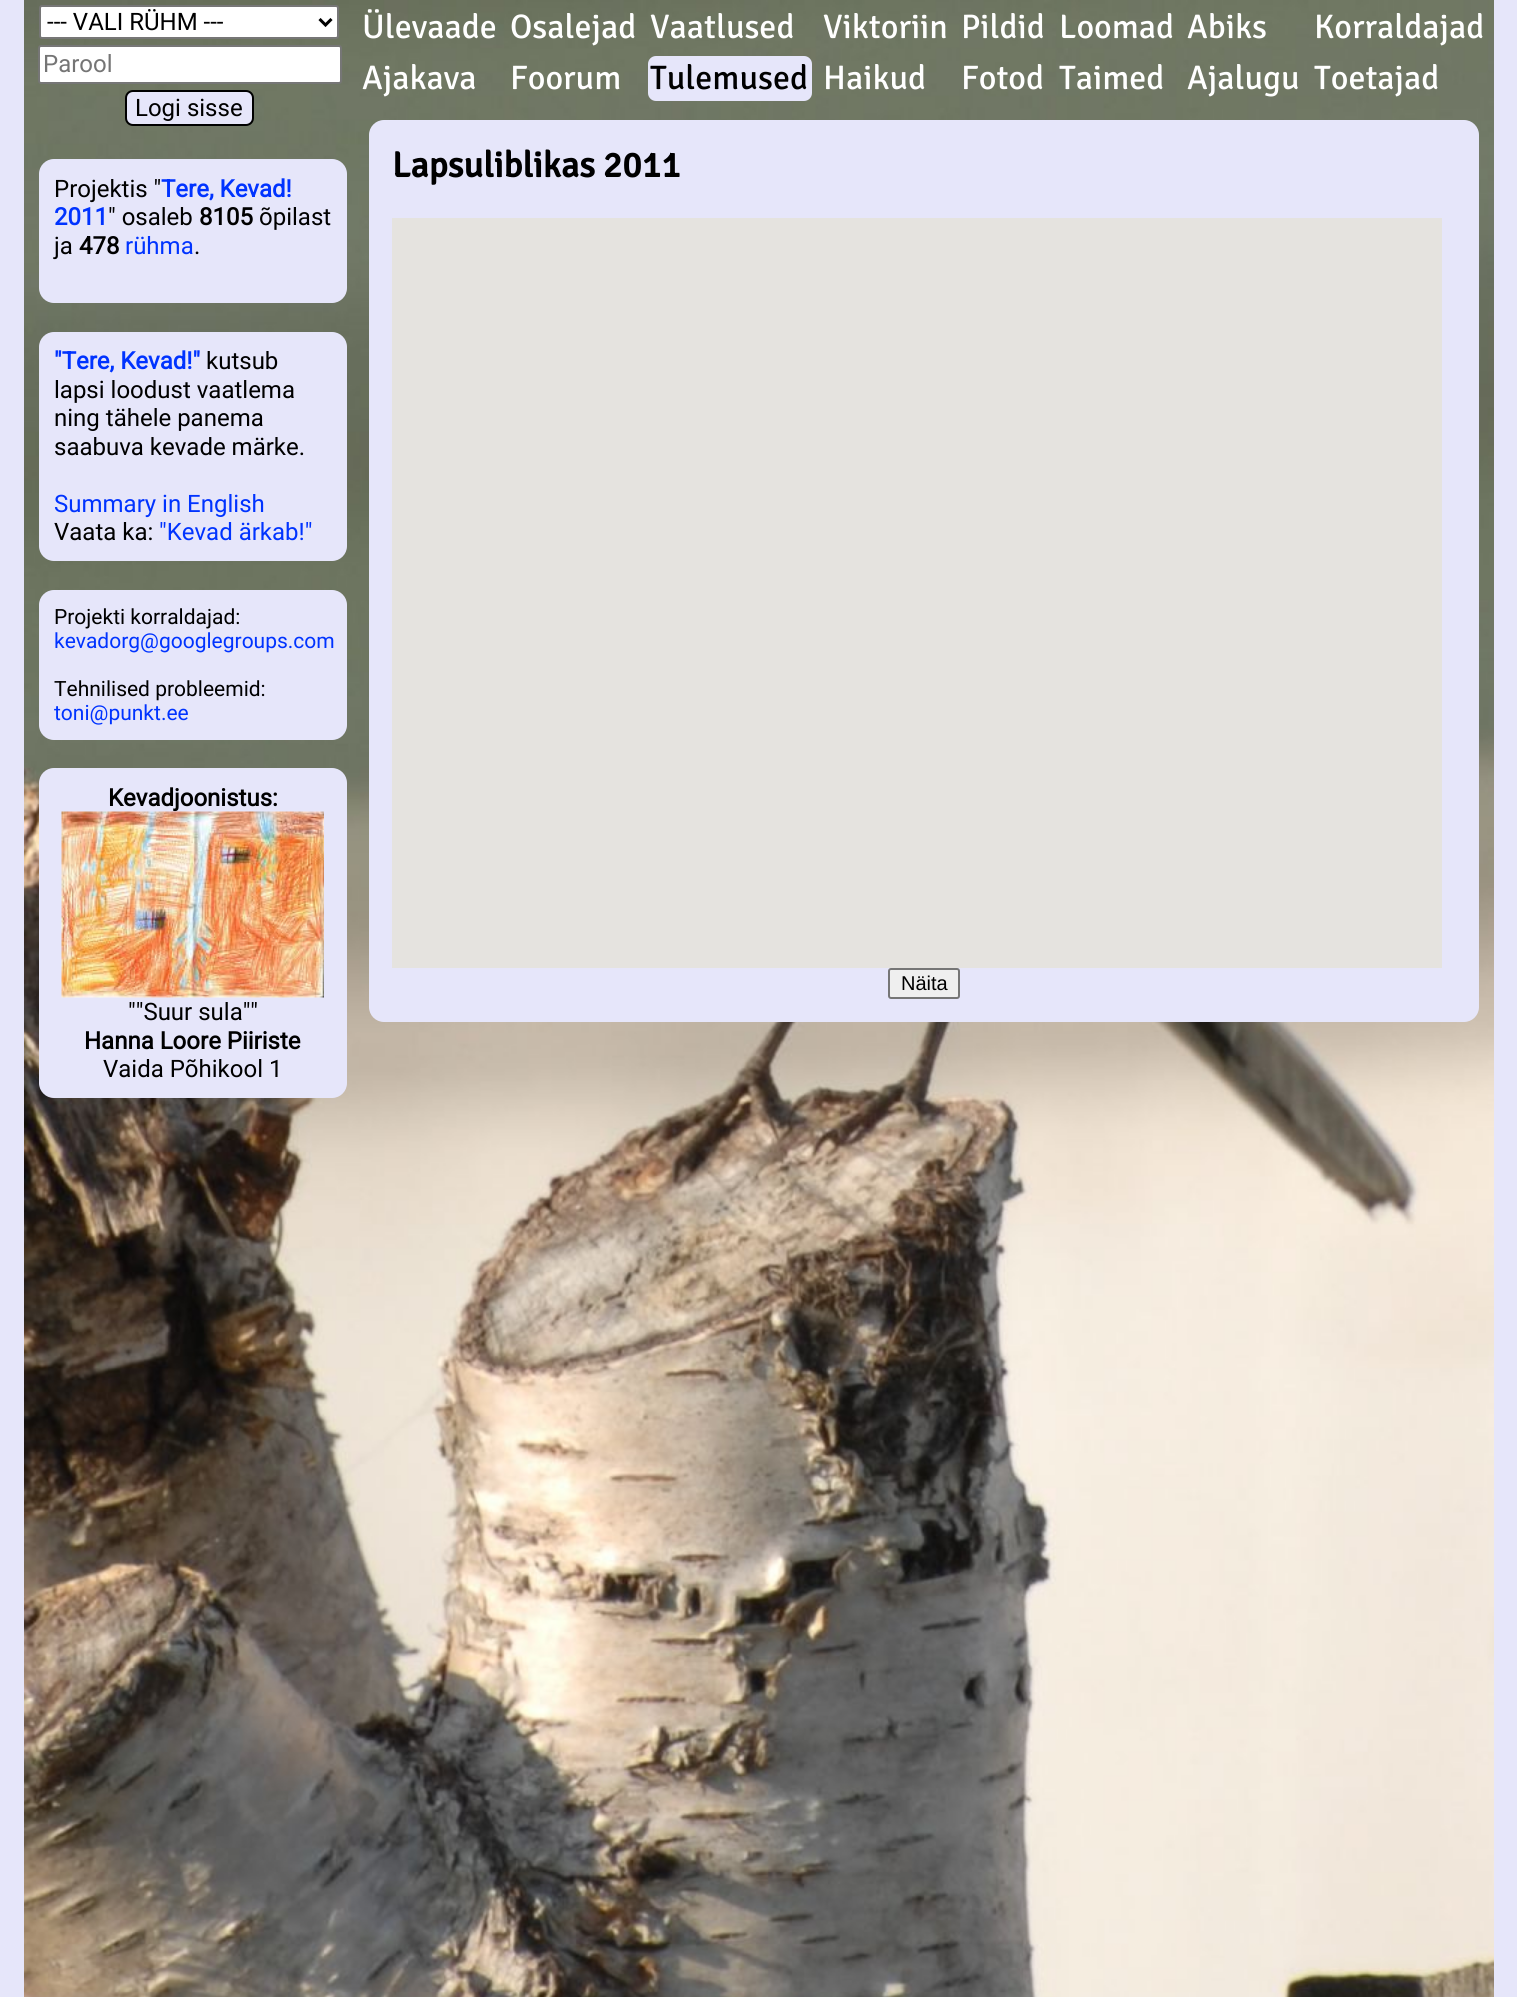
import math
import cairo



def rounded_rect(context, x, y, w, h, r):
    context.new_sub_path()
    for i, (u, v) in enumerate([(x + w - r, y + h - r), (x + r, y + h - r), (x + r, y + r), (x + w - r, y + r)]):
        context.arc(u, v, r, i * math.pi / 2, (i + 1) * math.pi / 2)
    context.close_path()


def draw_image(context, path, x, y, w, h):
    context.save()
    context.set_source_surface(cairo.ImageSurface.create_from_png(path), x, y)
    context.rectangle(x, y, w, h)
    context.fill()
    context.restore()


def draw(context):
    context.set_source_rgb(230 / 255, 230 / 255, 250 / 255)
    context.paint()
    draw_image(context, "images/1.png", 24, 0, 1470, 1997)
    context.set_source_rgb(1, 1, 1)
    rounded_rect(context, 40, 6, 298, 32, 2)
    context.fill_preserve()
    context.set_source_rgb(118 / 255, 118 / 255, 118 / 255)
    context.stroke()
    context.new_path()
    context.move_to(319.5, 19)
    context.line_to(325.5, 25)
    context.line_to(331.5, 19)
    context.set_source_rgb(0, 0, 0)
    context.set_line_width(3)
    context.stroke()
    context.set_source_rgb(1, 1, 1)
    rounded_rect(context, 39, 46, 302, 37, 2)
    context.fill_preserve()
    context.set_source_rgb(118 / 255, 118 / 255, 118 / 255)
    context.set_line_width(2)
    context.stroke()
    context.set_source_rgb(230 / 255, 230 / 255, 250 / 255)
    rounded_rect(context, 126, 91, 127, 34, 7)
    context.fill_preserve()
    context.set_source_rgb(0, 0, 0)
    context.stroke()
    context.set_source_rgb(230 / 255, 230 / 255, 250 / 255)
    rounded_rect(context, 39, 159, 308, 144, 15)
    context.fill()
    rounded_rect(context, 39, 332, 308, 229, 15)
    context.fill()
    rounded_rect(context, 39, 590, 308, 150, 15)
    context.fill()
    rounded_rect(context, 39, 768, 308, 330, 15)
    context.fill()
    rounded_rect(context, 648, 56, 164, 45, 8)
    context.fill()
    rounded_rect(context, 369, 120, 1110, 902, 15)
    context.fill()
    context.set_source_rgb(229 / 255, 227 / 255, 223 / 255)
    context.rectangle(392, 218, 1050, 750)
    context.fill()
    context.set_source_rgb(239 / 255, 239 / 255, 239 / 255)
    rounded_rect(context, 889, 969, 70, 29, 2)
    context.fill_preserve()
    context.set_source_rgb(118 / 255, 118 / 255, 118 / 255)
    context.stroke()
    context.select_font_face("Roboto")
    context.set_font_size(24)
    context.set_source_rgb(0, 0, 0)
    context.move_to(47, 30)
    context.show_text("--- VALI RÜHM ---")
    context.set_source_rgb(117 / 255, 117 / 255, 117 / 255)
    context.move_to(43, 72)
    context.show_text("Parool")
    context.set_source_rgb(0, 0, 0)
    context.move_to(135, 116)
    context.show_text("Logi sisse")
    context.move_to(54, 197)
    context.show_text("Projektis \"")
    context.select_font_face("Roboto", cairo.FontSlant.NORMAL, cairo.FontWeight.BOLD)
    context.set_source_rgb(0, 51 / 255, 1)
    context.move_to(161, 197)
    context.show_text("Tere, Kevad!")
    context.move_to(54, 225)
    context.show_text("2011")
    context.select_font_face("Roboto")
    context.set_source_rgb(0, 0, 0)
    context.move_to(108, 225)
    context.show_text("\" osaleb")
    context.select_font_face("Roboto", cairo.FontSlant.NORMAL, cairo.FontWeight.BOLD)
    context.move_to(199, 225)
    context.show_text("8105")
    context.select_font_face("Roboto")
    context.move_to(259, 225)
    context.show_text("õpilast")
    context.move_to(54, 254)
    context.show_text("ja")
    context.select_font_face("Roboto", cairo.FontSlant.NORMAL, cairo.FontWeight.BOLD)
    context.move_to(79, 254)
    context.show_text("478")
    context.select_font_face("Roboto")
    context.set_source_rgb(0, 51 / 255, 1)
    context.move_to(125, 254)
    context.show_text("rühma")
    context.set_source_rgb(0, 0, 0)
    context.move_to(194, 254)
    context.show_text(".")
    context.select_font_face("Roboto", cairo.FontSlant.NORMAL, cairo.FontWeight.BOLD)
    context.set_source_rgb(0, 51 / 255, 1)
    context.move_to(54, 369)
    context.show_text("\"Tere, Kevad!\"")
    context.select_font_face("Roboto")
    context.set_source_rgb(0, 0, 0)
    context.move_to(206, 369)
    context.show_text("kutsub")
    context.move_to(54, 398)
    context.show_text("lapsi loodust vaatlema")
    context.move_to(54, 426)
    context.show_text("ning tähele panema")
    context.move_to(54, 455)
    context.show_text("saabuva kevade märke.")
    context.set_source_rgb(0, 51 / 255, 1)
    context.move_to(54, 512)
    context.show_text("Summary in English")
    context.set_source_rgb(0, 0, 0)
    context.move_to(54, 540)
    context.show_text("Vaata ka:")
    context.set_source_rgb(0, 51 / 255, 1)
    context.move_to(159, 540)
    context.show_text("\"Kevad ärkab!\"")
    context.set_font_size(21)
    context.set_source_rgb(0, 0, 0)
    context.move_to(54, 624)
    context.show_text("Projekti korraldajad:")
    context.set_source_rgb(0, 51 / 255, 1)
    context.move_to(54, 648)
    context.show_text("kevadorg@googlegroups.com")
    context.set_source_rgb(0, 0, 0)
    context.move_to(54, 696)
    context.show_text("Tehnilised probleemid:")
    context.set_source_rgb(0, 51 / 255, 1)
    context.move_to(54, 720)
    context.show_text("toni@punkt.ee")
    context.select_font_face("Roboto", cairo.FontSlant.NORMAL, cairo.FontWeight.BOLD)
    context.set_font_size(24)
    context.set_source_rgb(0, 0, 0)
    context.move_to(108, 806)
    context.show_text("Kevadjoonistus:")
    draw_image(context, "images/2.png", 61, 811, 263, 187)
    context.select_font_face("Roboto")
    context.move_to(128, 1020)
    context.show_text("\"\"Suur sula\"\"")
    context.select_font_face("Roboto", cairo.FontSlant.NORMAL, cairo.FontWeight.BOLD)
    context.move_to(84, 1049)
    context.show_text("Hanna Loore Piiriste")
    context.select_font_face("Roboto")
    context.move_to(103, 1077)
    context.show_text("Vaida Põhikool 1")
    context.select_font_face("Signika Light")
    context.set_font_size(34)
    context.set_source_rgb(1, 1, 1)
    context.move_to(362, 38)
    context.show_text("Ülevaade")
    context.move_to(510, 38)
    context.show_text("Osalejad")
    context.move_to(650, 38)
    context.show_text("Vaatlused")
    context.move_to(823, 38)
    context.show_text("Viktoriin")
    context.move_to(961, 38)
    context.show_text("Pildid")
    context.move_to(1059, 38)
    context.show_text("Loomad")
    context.move_to(1187, 38)
    context.show_text("Abiks")
    context.move_to(1314, 38)
    context.show_text("Korraldajad")
    context.move_to(362, 89)
    context.show_text("Ajakava")
    context.move_to(510, 89)
    context.show_text("Foorum")
    context.set_source_rgb(0, 0, 0)
    context.move_to(650, 89)
    context.show_text("Tulemused")
    context.set_source_rgb(1, 1, 1)
    context.move_to(823, 89)
    context.show_text("Haikud")
    context.move_to(961, 89)
    context.show_text("Fotod")
    context.move_to(1059, 89)
    context.show_text("Taimed")
    context.move_to(1187, 89)
    context.show_text("Ajalugu")
    context.move_to(1314, 89)
    context.show_text("Toetajad")
    context.select_font_face("Signika", cairo.FontSlant.NORMAL, cairo.FontWeight.BOLD)
    context.set_font_size(36)
    context.set_source_rgb(0, 0, 0)
    context.move_to(392, 177)
    context.show_text("Lapsuliblikas 2011")
    context.select_font_face("Liberation Sans")
    context.set_font_size(20)
    context.move_to(901, 990)
    context.show_text("Näita")


surface = cairo.ImageSurface(cairo.Format.RGB24, 1517, 1997)
context = cairo.Context(surface)
options = cairo.FontOptions()
options.set_hint_metrics(cairo.HintMetrics.OFF)
options.set_hint_style(cairo.HintStyle.NONE)
context.set_font_options(options)
context.set_miter_limit(4)
draw(context)
surface.write_to_png("out.png")
